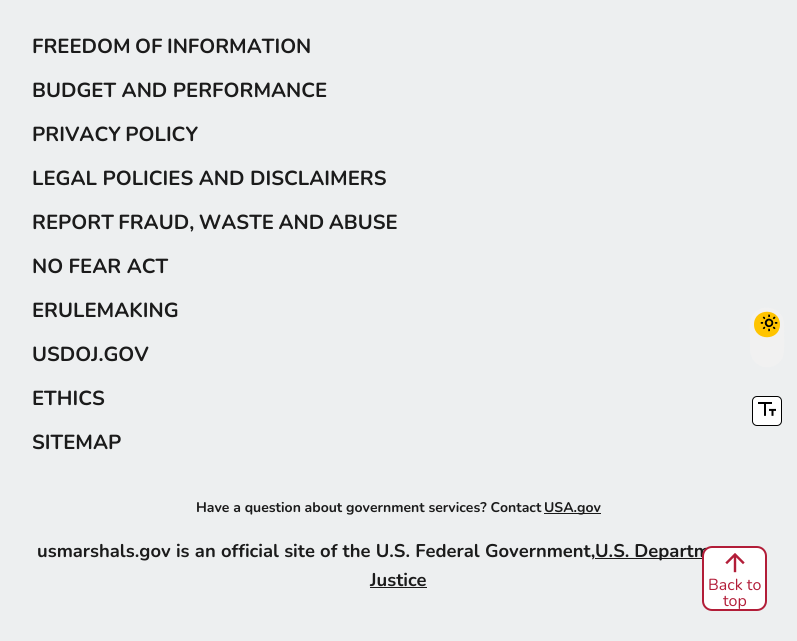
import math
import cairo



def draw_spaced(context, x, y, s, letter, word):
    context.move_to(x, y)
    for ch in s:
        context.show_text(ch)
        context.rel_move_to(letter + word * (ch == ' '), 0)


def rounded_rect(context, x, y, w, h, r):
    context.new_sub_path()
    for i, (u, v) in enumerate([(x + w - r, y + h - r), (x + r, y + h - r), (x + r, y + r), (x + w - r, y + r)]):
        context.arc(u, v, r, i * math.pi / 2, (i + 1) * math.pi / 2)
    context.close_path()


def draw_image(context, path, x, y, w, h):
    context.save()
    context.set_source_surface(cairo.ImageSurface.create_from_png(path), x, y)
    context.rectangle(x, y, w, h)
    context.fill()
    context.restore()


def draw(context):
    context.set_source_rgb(237 / 255, 239 / 255, 240 / 255)
    context.paint()
    context.set_source_rgb(27 / 255, 27 / 255, 27 / 255)
    context.rectangle(544, 513, 57, 1)
    context.fill()
    context.rectangle(595, 558, 107, 1)
    context.fill()
    context.rectangle(370, 587, 57, 1)
    context.fill()
    context.set_source_rgb(241 / 255, 241 / 255, 241 / 255)
    context.new_path()
    context.move_to(784, 324)
    context.curve_to(784, 332, 785, 351, 783, 357)
    context.curve_to(775, 374, 751, 369, 750, 350)
    context.line_to(750, 338)
    context.curve_to(750, 331, 749, 324, 751, 318)
    context.curve_to(758, 301, 784, 306, 784, 324)
    context.close_path()
    context.fill()
    context.set_source_rgb(1, 196 / 255, 0)
    context.new_path()
    context.move_to(780, 324.5)
    context.curve_to(780, 341.5, 754, 341.5, 754, 324.5)
    context.curve_to(754, 307.5, 780, 307.5, 780, 324.5)
    context.close_path()
    context.fill()
    draw_image(context, "images/2.png", 760, 314, 18, 18)
    context.set_source_rgb(1, 1, 1)
    rounded_rect(context, 752.5, 396.5, 29, 29, 4.5)
    context.fill_preserve()
    context.set_source_rgb(0, 0, 0)
    context.set_line_width(1)
    context.stroke()
    draw_image(context, "images/3.png", 758, 402, 18, 14)
    context.select_font_face("Nunito", cairo.FontSlant.NORMAL, cairo.FontWeight.BOLD)
    context.set_font_size(20.3)
    context.set_source_rgb(27 / 255, 27 / 255, 27 / 255)
    draw_spaced(context, 32, 53, "FREEDOM OF INFORMATION", 0, -1)
    context.move_to(32, 97)
    context.show_text("BUDGET AND PERFORMANCE")
    draw_spaced(context, 32, 141, "PRIVACY POLICY", 0, -1)
    context.move_to(32, 185)
    context.show_text("LEGAL POLICIES AND DISCLAIMERS")
    draw_spaced(context, 32, 229, "REPORT FRAUD, WASTE AND ABUSE", 0, -1)
    context.move_to(32, 273)
    context.show_text("NO FEAR ACT")
    context.move_to(32, 317)
    context.show_text("ERULEMAKING")
    context.move_to(32, 361)
    context.show_text("USDOJ.GOV")
    context.move_to(32, 405)
    context.show_text("ETHICS")
    context.move_to(32, 449)
    context.show_text("SITEMAP")
    context.set_font_size(14)
    context.move_to(196, 512)
    context.show_text("Have a question about government services? Contact")
    context.move_to(544, 512)
    context.show_text("USA.gov")
    context.set_font_size(18.4)
    draw_spaced(context, 37, 557, "usmarshals.gov is an official site of the U.S. Federal Government,", 0, 0.25)
    context.move_to(595, 557)
    context.show_text("U.S. Departm")
    context.move_to(370, 586)
    context.show_text("Justice")
    context.set_source_rgb(1, 1, 1)
    rounded_rect(context, 703, 547, 63, 63, 9)
    context.fill_preserve()
    context.set_source_rgb(178 / 255, 29 / 255, 56 / 255)
    context.set_line_width(2)
    context.stroke()
    draw_image(context, "images/1.png", 725, 553, 20, 20)
    context.select_font_face("Nunito")
    context.set_font_size(16)
    context.move_to(708, 590)
    context.show_text("Back to")
    context.move_to(723, 606)
    context.show_text("top")


surface = cairo.ImageSurface(cairo.Format.RGB24, 797, 641)
context = cairo.Context(surface)
options = cairo.FontOptions()
options.set_hint_metrics(cairo.HintMetrics.OFF)
options.set_hint_style(cairo.HintStyle.NONE)
context.set_font_options(options)
context.set_miter_limit(4)
draw(context)
surface.write_to_png("out.png")
